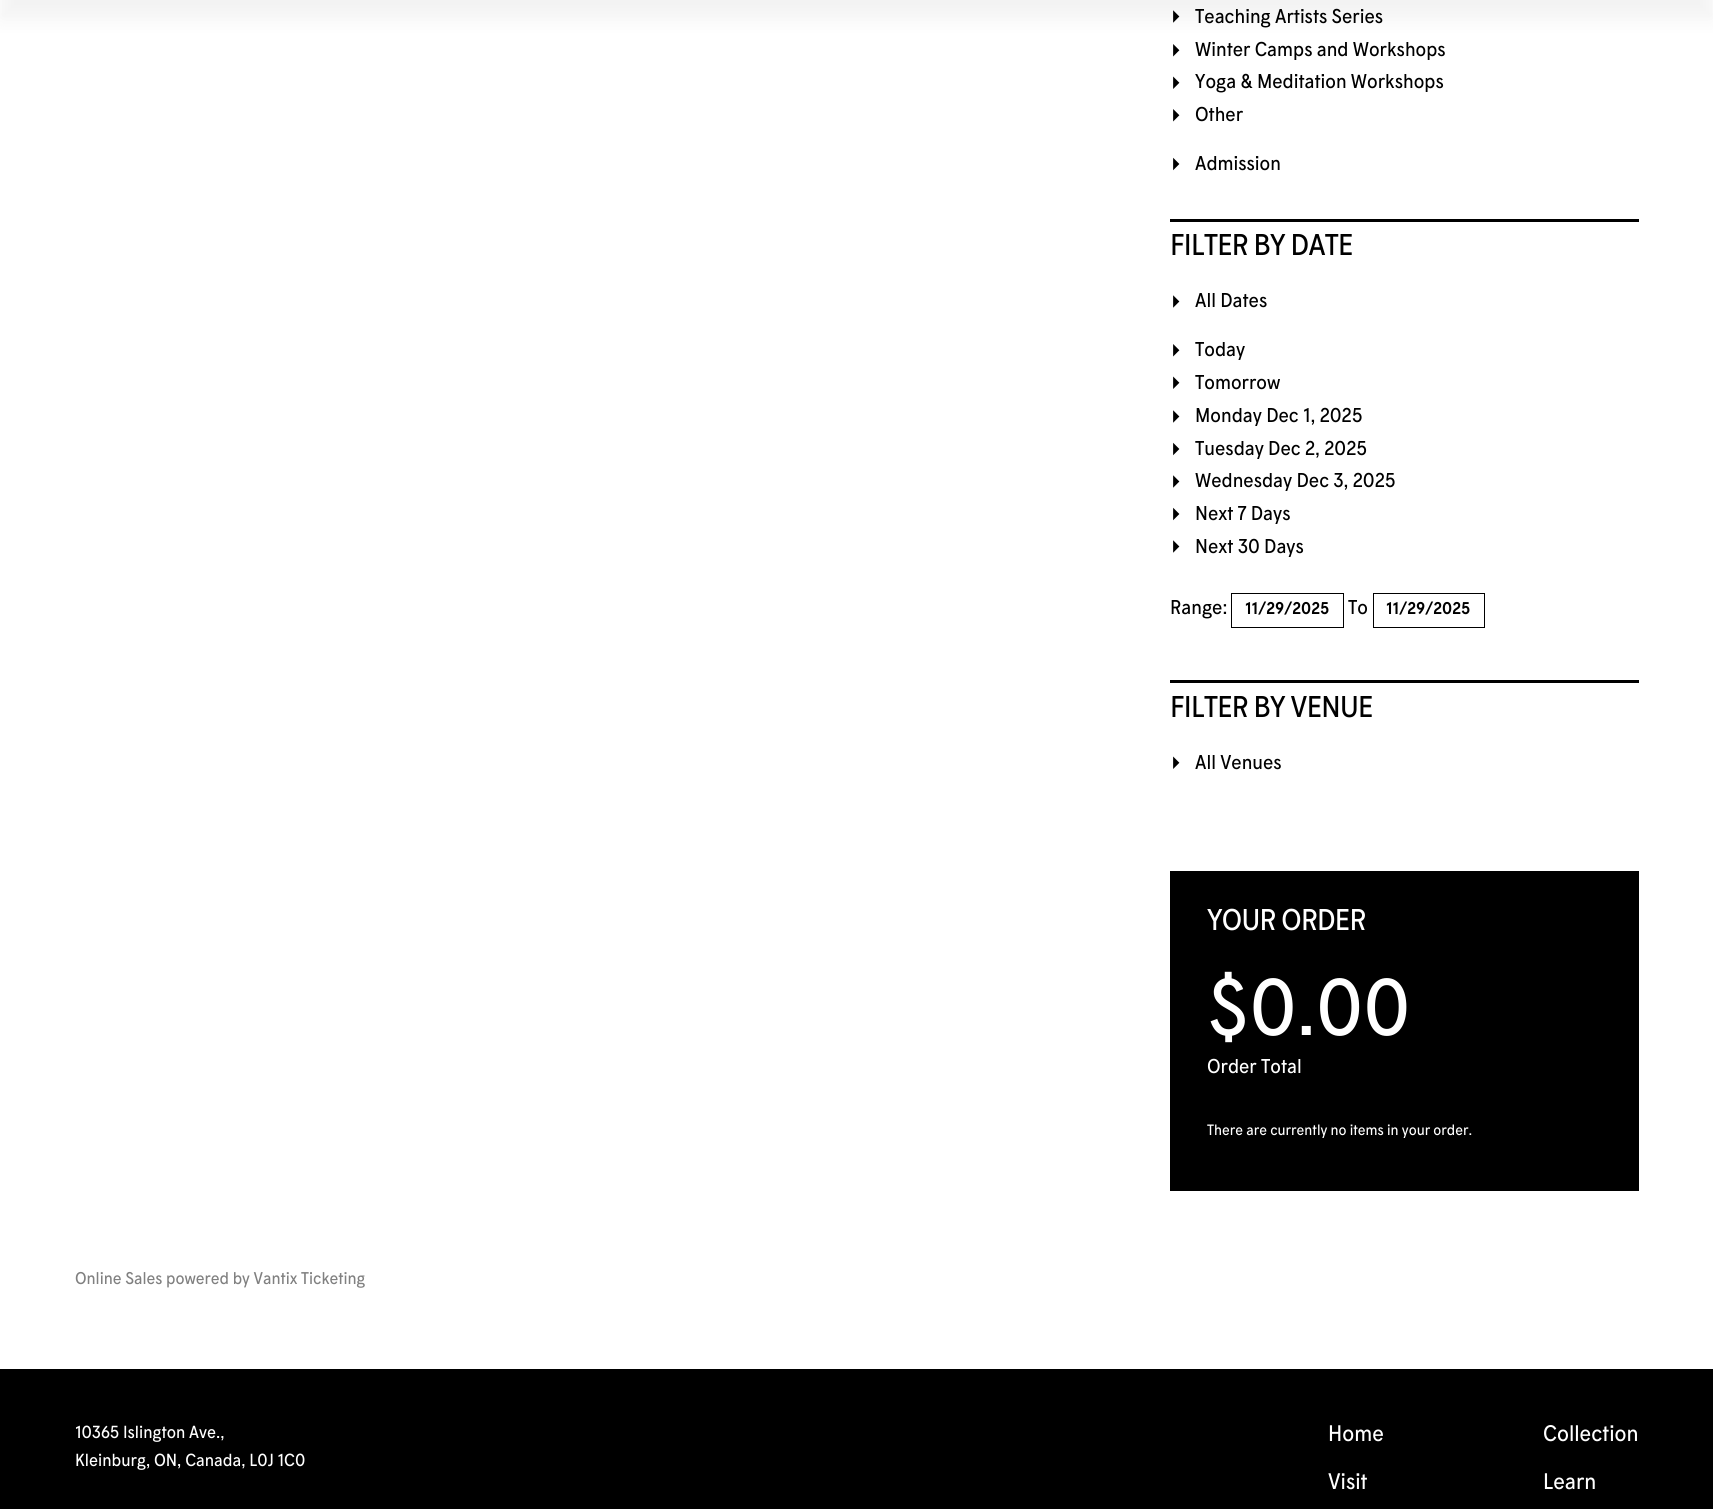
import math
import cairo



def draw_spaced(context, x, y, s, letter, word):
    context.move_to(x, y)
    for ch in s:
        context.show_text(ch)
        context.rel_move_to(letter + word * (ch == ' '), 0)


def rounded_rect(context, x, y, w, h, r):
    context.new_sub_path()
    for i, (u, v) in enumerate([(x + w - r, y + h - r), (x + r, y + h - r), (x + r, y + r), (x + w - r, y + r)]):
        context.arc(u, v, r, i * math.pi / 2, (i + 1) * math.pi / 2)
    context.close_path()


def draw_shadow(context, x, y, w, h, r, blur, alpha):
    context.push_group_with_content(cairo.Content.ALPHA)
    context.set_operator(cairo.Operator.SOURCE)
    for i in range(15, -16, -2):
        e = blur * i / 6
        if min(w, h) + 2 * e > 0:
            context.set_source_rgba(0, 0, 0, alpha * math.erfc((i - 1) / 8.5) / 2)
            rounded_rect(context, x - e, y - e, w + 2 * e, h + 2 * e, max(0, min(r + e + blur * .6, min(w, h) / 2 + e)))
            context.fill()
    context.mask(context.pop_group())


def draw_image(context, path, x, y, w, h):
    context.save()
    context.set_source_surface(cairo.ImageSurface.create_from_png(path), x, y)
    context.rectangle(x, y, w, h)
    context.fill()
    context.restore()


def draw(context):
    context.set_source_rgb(1, 1, 1)
    context.paint()
    draw_image(context, "images/1.png", 1173, 10, 7, 13)
    draw_image(context, "images/2.png", 1173, 44, 7, 13)
    context.set_source_rgb(0, 0, 0)
    draw_shadow(context, 0, -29, 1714, 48, 0, 9.5, 0.05)
    draw_image(context, "images/3.png", 1173, 76, 7, 13)
    draw_image(context, "images/2.png", 1173, 109, 7, 13)
    draw_image(context, "images/4.png", 1173, 157, 7, 14)
    context.set_source_rgb(0, 0, 0)
    context.rectangle(1170, 219, 469, 3)
    context.fill()
    draw_image(context, "images/1.png", 1173, 295, 7, 13)
    draw_image(context, "images/2.png", 1173, 344, 7, 13)
    draw_image(context, "images/3.png", 1173, 376, 7, 13)
    draw_image(context, "images/1.png", 1173, 410, 7, 13)
    draw_image(context, "images/4.png", 1173, 442, 7, 14)
    draw_image(context, "images/1.png", 1173, 475, 7, 13)
    draw_image(context, "images/4.png", 1173, 507, 7, 14)
    draw_image(context, "images/1.png", 1173, 540, 7, 13)
    context.rectangle(1231.5, 593.5, 112, 34)
    context.set_line_width(1)
    context.stroke()
    context.rectangle(1373.5, 593.5, 111, 34)
    context.stroke()
    context.rectangle(1170, 680, 469, 3)
    context.fill()
    draw_image(context, "images/3.png", 1173, 756, 7, 13)
    context.rectangle(1170, 871, 469, 320)
    context.fill()
    context.rectangle(0, 1369, 1713, 140)
    context.fill()
    context.select_font_face("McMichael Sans")
    context.set_font_size(20)
    context.move_to(1195, 23)
    context.show_text("Teaching Artists Series")
    context.move_to(1195, 56)
    context.show_text("Winter Camps and Workshops")
    context.move_to(1195, 88)
    context.show_text("Yoga & Meditation Workshops")
    context.move_to(1195, 121)
    context.show_text("Other")
    context.move_to(1195, 170)
    context.show_text("Admission")
    context.set_font_size(30)
    draw_spaced(context, 1170, 255, "FILTER BY DATE", -0.75, 0)
    context.set_font_size(20)
    context.move_to(1195, 307)
    context.show_text("All Dates")
    context.move_to(1195, 356)
    context.show_text("Today")
    context.move_to(1195, 389)
    context.show_text("Tomorrow")
    context.move_to(1195, 422)
    context.show_text("Monday Dec 1, 2025")
    context.move_to(1195, 455)
    context.show_text("Tuesday Dec 2, 2025")
    context.move_to(1195, 487)
    context.show_text("Wednesday Dec 3, 2025")
    context.move_to(1195, 520)
    context.show_text("Next 7 Days")
    context.move_to(1195, 553)
    context.show_text("Next 30 Days")
    context.move_to(1170, 614)
    context.show_text("Range:")
    context.select_font_face("McMichael Sans Medium")
    context.set_font_size(17)
    context.move_to(1245, 614)
    context.show_text("11/29/2025")
    context.select_font_face("McMichael Sans")
    context.set_font_size(20)
    context.move_to(1348, 614)
    context.show_text("To")
    context.select_font_face("McMichael Sans Medium")
    context.set_font_size(17)
    context.move_to(1386, 614)
    context.show_text("11/29/2025")
    context.select_font_face("McMichael Sans")
    context.set_font_size(30)
    draw_spaced(context, 1170, 717, "FILTER BY VENUE", -0.75, 0)
    context.set_font_size(20)
    context.move_to(1195, 769)
    context.show_text("All Venues")
    context.set_font_size(30)
    context.set_source_rgb(1, 1, 1)
    draw_spaced(context, 1207, 930, "YOUR ORDER", -0.75, 0)
    context.set_font_size(80)
    context.move_to(1207, 1035)
    context.show_text("$0.00")
    context.set_font_size(20)
    context.move_to(1207, 1073)
    context.show_text("Order Total")
    context.set_font_size(15)
    context.move_to(1207, 1135)
    context.show_text("There are currently no items in your order.")
    context.set_font_size(17)
    context.set_source_rgb(128 / 255, 128 / 255, 128 / 255)
    context.move_to(75, 1284)
    context.show_text("Online Sales powered by Vantix Ticketing")
    context.set_font_size(17.5)
    context.set_source_rgb(1, 1, 1)
    context.move_to(75, 1438)
    context.show_text("10365 Islington Ave.,")
    context.move_to(75, 1466)
    context.show_text("Kleinburg, ON, Canada, L0J 1C0")
    context.set_font_size(22.5)
    context.move_to(1328, 1441)
    context.show_text("Home")
    context.move_to(1328, 1489)
    context.show_text("Visit")
    context.move_to(1543, 1441)
    context.show_text("Collection")
    context.move_to(1543, 1489)
    context.show_text("Learn")


surface = cairo.ImageSurface(cairo.Format.RGB24, 1713, 1509)
context = cairo.Context(surface)
options = cairo.FontOptions()
options.set_hint_metrics(cairo.HintMetrics.OFF)
options.set_hint_style(cairo.HintStyle.NONE)
context.set_font_options(options)
context.set_miter_limit(4)
draw(context)
surface.write_to_png("out.png")
